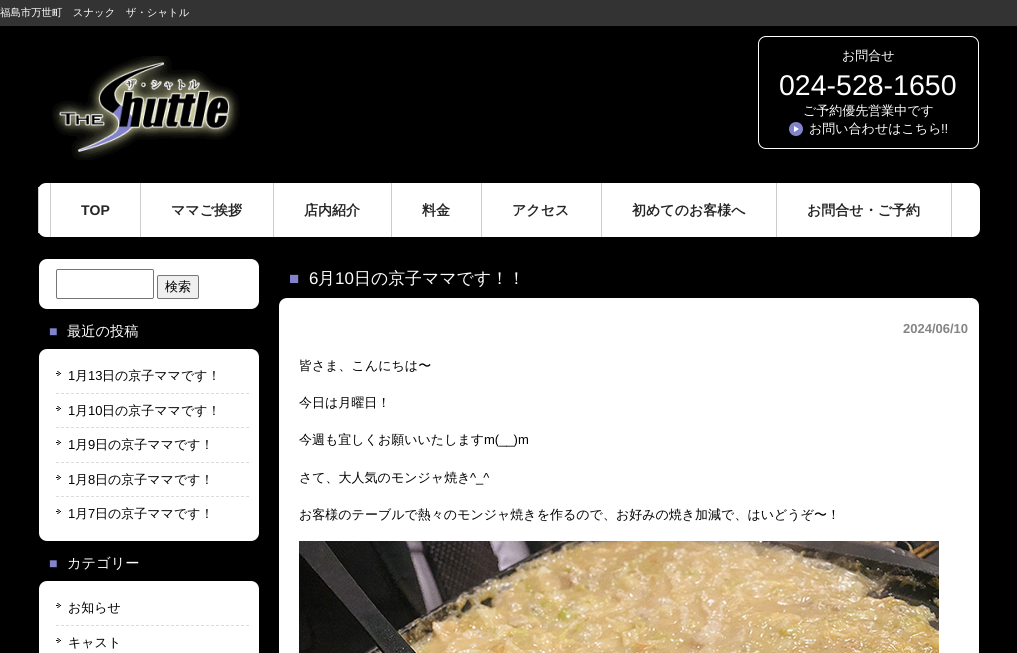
import math
import cairo



def rounded_rect(context, x, y, w, h, r):
    context.new_sub_path()
    for i, (u, v) in enumerate([(x + w - r, y + h - r), (x + r, y + h - r), (x + r, y + r), (x + w - r, y + r)]):
        context.arc(u, v, r, i * math.pi / 2, (i + 1) * math.pi / 2)
    context.close_path()


def draw_image(context, path, x, y, w, h):
    context.save()
    context.set_source_surface(cairo.ImageSurface.create_from_png(path), x, y)
    context.rectangle(x, y, w, h)
    context.fill()
    context.restore()


def draw(context):
    context.set_source_rgb(0, 0, 0)
    context.paint()
    context.set_source_rgb(51 / 255, 51 / 255, 51 / 255)
    context.rectangle(0, 0, 1017, 26)
    context.fill()
    draw_image(context, "images/1.png", 52, 56, 188, 104)
    rounded_rect(context, 758.5, 36.5, 220, 112, 7.5)
    context.set_source_rgb(1, 1, 1)
    context.set_line_width(1)
    context.stroke()
    context.set_source_rgb(131 / 255, 131 / 255, 203 / 255)
    context.arc(796, 129, 7, 0, 2 * math.pi)
    context.fill()
    context.set_source_rgb(1, 1, 1)
    context.new_path()
    context.move_to(794, 132)
    context.line_to(794, 126)
    context.line_to(799, 129)
    context.close_path()
    context.fill()
    rounded_rect(context, 38, 183, 942, 54, 8)
    context.fill()
    context.set_source_rgb(204 / 255, 204 / 255, 204 / 255)
    context.rectangle(38, 187, 1, 46)
    context.fill()
    context.rectangle(140, 183, 1, 54)
    context.fill()
    context.rectangle(50, 183, 1, 54)
    context.fill()
    context.rectangle(273, 183, 1, 54)
    context.fill()
    context.rectangle(391, 183, 1, 54)
    context.fill()
    context.rectangle(481, 183, 1, 54)
    context.fill()
    context.rectangle(601, 183, 1, 54)
    context.fill()
    context.rectangle(776, 183, 1, 54)
    context.fill()
    context.rectangle(951, 183, 1, 54)
    context.fill()
    context.set_source_rgb(1, 1, 1)
    rounded_rect(context, 39, 259, 220, 50, 8)
    context.fill()
    rounded_rect(context, 56.5, 269.5, 97, 29, 1.5)
    context.set_source_rgb(118 / 255, 118 / 255, 118 / 255)
    context.stroke()
    context.set_source_rgb(239 / 255, 239 / 255, 239 / 255)
    rounded_rect(context, 157.5, 275.5, 41, 23, 1.5)
    context.fill_preserve()
    context.set_source_rgb(118 / 255, 118 / 255, 118 / 255)
    context.stroke()
    context.set_source_rgb(1, 1, 1)
    rounded_rect(context, 39, 349, 220, 192, 8)
    context.fill()
    draw_image(context, "images/2.png", 56, 371, 5, 5)
    context.new_path()
    context.move_to(56, 393.5)
    context.line_to(249, 393.5)
    context.set_source_rgb(220 / 255, 220 / 255, 220 / 255)
    context.set_dash([3, 2])
    context.stroke()
    draw_image(context, "images/2.png", 56, 406, 5, 5)
    context.new_path()
    context.move_to(56, 427.5)
    context.line_to(249, 427.5)
    context.stroke()
    draw_image(context, "images/2.png", 56, 440, 5, 5)
    context.new_path()
    context.move_to(56, 462.5)
    context.line_to(249, 462.5)
    context.stroke()
    draw_image(context, "images/2.png", 56, 475, 5, 5)
    context.new_path()
    context.move_to(56, 496.5)
    context.line_to(249, 496.5)
    context.stroke()
    draw_image(context, "images/2.png", 56, 509, 5, 5)
    context.set_source_rgb(1, 1, 1)
    rounded_rect(context, 39, 581, 220, 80, 8)
    context.fill()
    draw_image(context, "images/2.png", 56, 603, 5, 5)
    context.new_path()
    context.move_to(56, 625.5)
    context.line_to(249, 625.5)
    context.set_source_rgb(220 / 255, 220 / 255, 220 / 255)
    context.stroke()
    draw_image(context, "images/2.png", 56, 638, 5, 5)
    context.set_source_rgb(1, 1, 1)
    rounded_rect(context, 279, 298, 700, 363, 8)
    context.fill()
    draw_image(context, "images/3.png", 299, 541, 640, 112)
    context.select_font_face("WenQuanYi Zen Hei Medium")
    context.set_font_size(10.4)
    context.move_to(0, 16)
    context.show_text("福島市万世町　スナック　ザ・シャトル")
    context.set_font_size(13)
    context.move_to(842, 60)
    context.show_text("お問合せ")
    context.select_font_face("Liberation Sans")
    context.set_font_size(28.5)
    context.move_to(779, 95)
    context.show_text("024-528-1650")
    context.select_font_face("WenQuanYi Zen Hei Medium")
    context.set_font_size(13)
    context.move_to(803, 115)
    context.show_text("ご予約優先営業中です")
    context.move_to(809, 133)
    context.show_text("お問い合わせはこちら")
    context.select_font_face("Liberation Sans")
    context.move_to(941, 133)
    context.show_text("!!")
    context.select_font_face("Liberation Sans", cairo.FontSlant.NORMAL, cairo.FontWeight.BOLD)
    context.set_font_size(14)
    context.set_source_rgb(37 / 255, 37 / 255, 37 / 255)
    context.move_to(81, 215)
    context.show_text("TOP")
    context.select_font_face("WenQuanYi Zen Hei", cairo.FontSlant.NORMAL, cairo.FontWeight.BOLD)
    context.move_to(171, 215)
    context.show_text("ママご挨拶")
    context.move_to(304, 215)
    context.show_text("店内紹介")
    context.move_to(422, 215)
    context.show_text("料金")
    context.move_to(512, 215)
    context.show_text("アクセス")
    context.move_to(632, 215)
    context.show_text("初めてのお客様へ")
    context.move_to(807, 215)
    context.show_text("お問合せ・ご予約")
    context.select_font_face("WenQuanYi Zen Hei Medium")
    context.set_font_size(13)
    context.set_source_rgb(0, 0, 0)
    context.move_to(165, 291)
    context.show_text("検索")
    context.select_font_face("Liberation Sans")
    context.set_font_size(14.25)
    context.set_source_rgb(131 / 255, 131 / 255, 203 / 255)
    context.move_to(49, 336)
    context.show_text("■")
    context.select_font_face("WenQuanYi Zen Hei Medium")
    context.set_source_rgb(1, 1, 1)
    context.move_to(67, 336)
    context.show_text("最近の投稿")
    context.select_font_face("Liberation Sans")
    context.set_font_size(13)
    context.set_source_rgb(0, 0, 0)
    context.move_to(68, 380)
    context.show_text("1")
    context.select_font_face("WenQuanYi Zen Hei Medium")
    context.move_to(75, 380)
    context.show_text("月")
    context.select_font_face("Liberation Sans")
    context.move_to(88, 380)
    context.show_text("13")
    context.select_font_face("WenQuanYi Zen Hei Medium")
    context.move_to(102, 380)
    context.show_text("日の京子ママです！")
    context.select_font_face("Liberation Sans")
    context.move_to(68, 415)
    context.show_text("1")
    context.select_font_face("WenQuanYi Zen Hei Medium")
    context.move_to(75, 415)
    context.show_text("月")
    context.select_font_face("Liberation Sans")
    context.move_to(88, 415)
    context.show_text("10")
    context.select_font_face("WenQuanYi Zen Hei Medium")
    context.move_to(102, 415)
    context.show_text("日の京子ママです！")
    context.select_font_face("Liberation Sans")
    context.move_to(68, 449)
    context.show_text("1")
    context.select_font_face("WenQuanYi Zen Hei Medium")
    context.move_to(75, 449)
    context.show_text("月")
    context.select_font_face("Liberation Sans")
    context.move_to(88, 449)
    context.show_text("9")
    context.select_font_face("WenQuanYi Zen Hei Medium")
    context.move_to(95, 449)
    context.show_text("日の京子ママです！")
    context.select_font_face("Liberation Sans")
    context.move_to(68, 484)
    context.show_text("1")
    context.select_font_face("WenQuanYi Zen Hei Medium")
    context.move_to(75, 484)
    context.show_text("月")
    context.select_font_face("Liberation Sans")
    context.move_to(88, 484)
    context.show_text("8")
    context.select_font_face("WenQuanYi Zen Hei Medium")
    context.move_to(95, 484)
    context.show_text("日の京子ママです！")
    context.select_font_face("Liberation Sans")
    context.move_to(68, 518)
    context.show_text("1")
    context.select_font_face("WenQuanYi Zen Hei Medium")
    context.move_to(75, 518)
    context.show_text("月")
    context.select_font_face("Liberation Sans")
    context.move_to(88, 518)
    context.show_text("7")
    context.select_font_face("WenQuanYi Zen Hei Medium")
    context.move_to(95, 518)
    context.show_text("日の京子ママです！")
    context.select_font_face("Liberation Sans")
    context.set_font_size(14.25)
    context.set_source_rgb(131 / 255, 131 / 255, 203 / 255)
    context.move_to(49, 568)
    context.show_text("■")
    context.select_font_face("WenQuanYi Zen Hei Medium")
    context.set_source_rgb(1, 1, 1)
    context.move_to(67, 568)
    context.show_text("カテゴリー")
    context.set_font_size(13)
    context.set_source_rgb(0, 0, 0)
    context.move_to(68, 612)
    context.show_text("お知らせ")
    context.move_to(68, 647)
    context.show_text("キャスト")
    context.select_font_face("Liberation Sans")
    context.set_font_size(16.9)
    context.set_source_rgb(131 / 255, 131 / 255, 203 / 255)
    context.move_to(289, 284)
    context.show_text("■")
    context.set_source_rgb(1, 1, 1)
    context.move_to(309, 284)
    context.show_text("6")
    context.select_font_face("WenQuanYi Zen Hei Medium")
    context.move_to(318, 284)
    context.show_text("月")
    context.select_font_face("Liberation Sans")
    context.move_to(335, 284)
    context.show_text("10")
    context.select_font_face("WenQuanYi Zen Hei Medium")
    context.move_to(354, 284)
    context.show_text("日の京子ママです！！")
    context.select_font_face("Liberation Sans", cairo.FontSlant.NORMAL, cairo.FontWeight.BOLD)
    context.set_font_size(13)
    context.set_source_rgb(133 / 255, 133 / 255, 133 / 255)
    context.move_to(903, 333)
    context.show_text("2024/06/10")
    context.select_font_face("WenQuanYi Zen Hei Medium")
    context.set_source_rgb(0, 0, 0)
    context.move_to(299, 370)
    context.show_text("皆さま、こんにちは〜")
    context.move_to(299, 407)
    context.show_text("今日は月曜日！")
    context.move_to(299, 444)
    context.show_text("今週も宜しくお願いいたします")
    context.select_font_face("Liberation Sans")
    context.move_to(484, 444)
    context.show_text("m(__)m")
    context.select_font_face("WenQuanYi Zen Hei Medium")
    context.move_to(299, 482)
    context.show_text("さて、大人気のモンジャ焼き")
    context.select_font_face("Liberation Sans")
    context.move_to(470, 482)
    context.show_text("^_^")
    context.select_font_face("WenQuanYi Zen Hei Medium")
    context.move_to(299, 519)
    context.show_text("お客様のテーブルで熱々のモンジャ焼きを作るので、お好みの焼き加減で、はいどうぞ〜！")


surface = cairo.ImageSurface(cairo.Format.RGB24, 1017, 653)
context = cairo.Context(surface)
options = cairo.FontOptions()
options.set_hint_metrics(cairo.HintMetrics.OFF)
options.set_hint_style(cairo.HintStyle.NONE)
context.set_font_options(options)
context.set_miter_limit(4)
draw(context)
surface.write_to_png("out.png")
